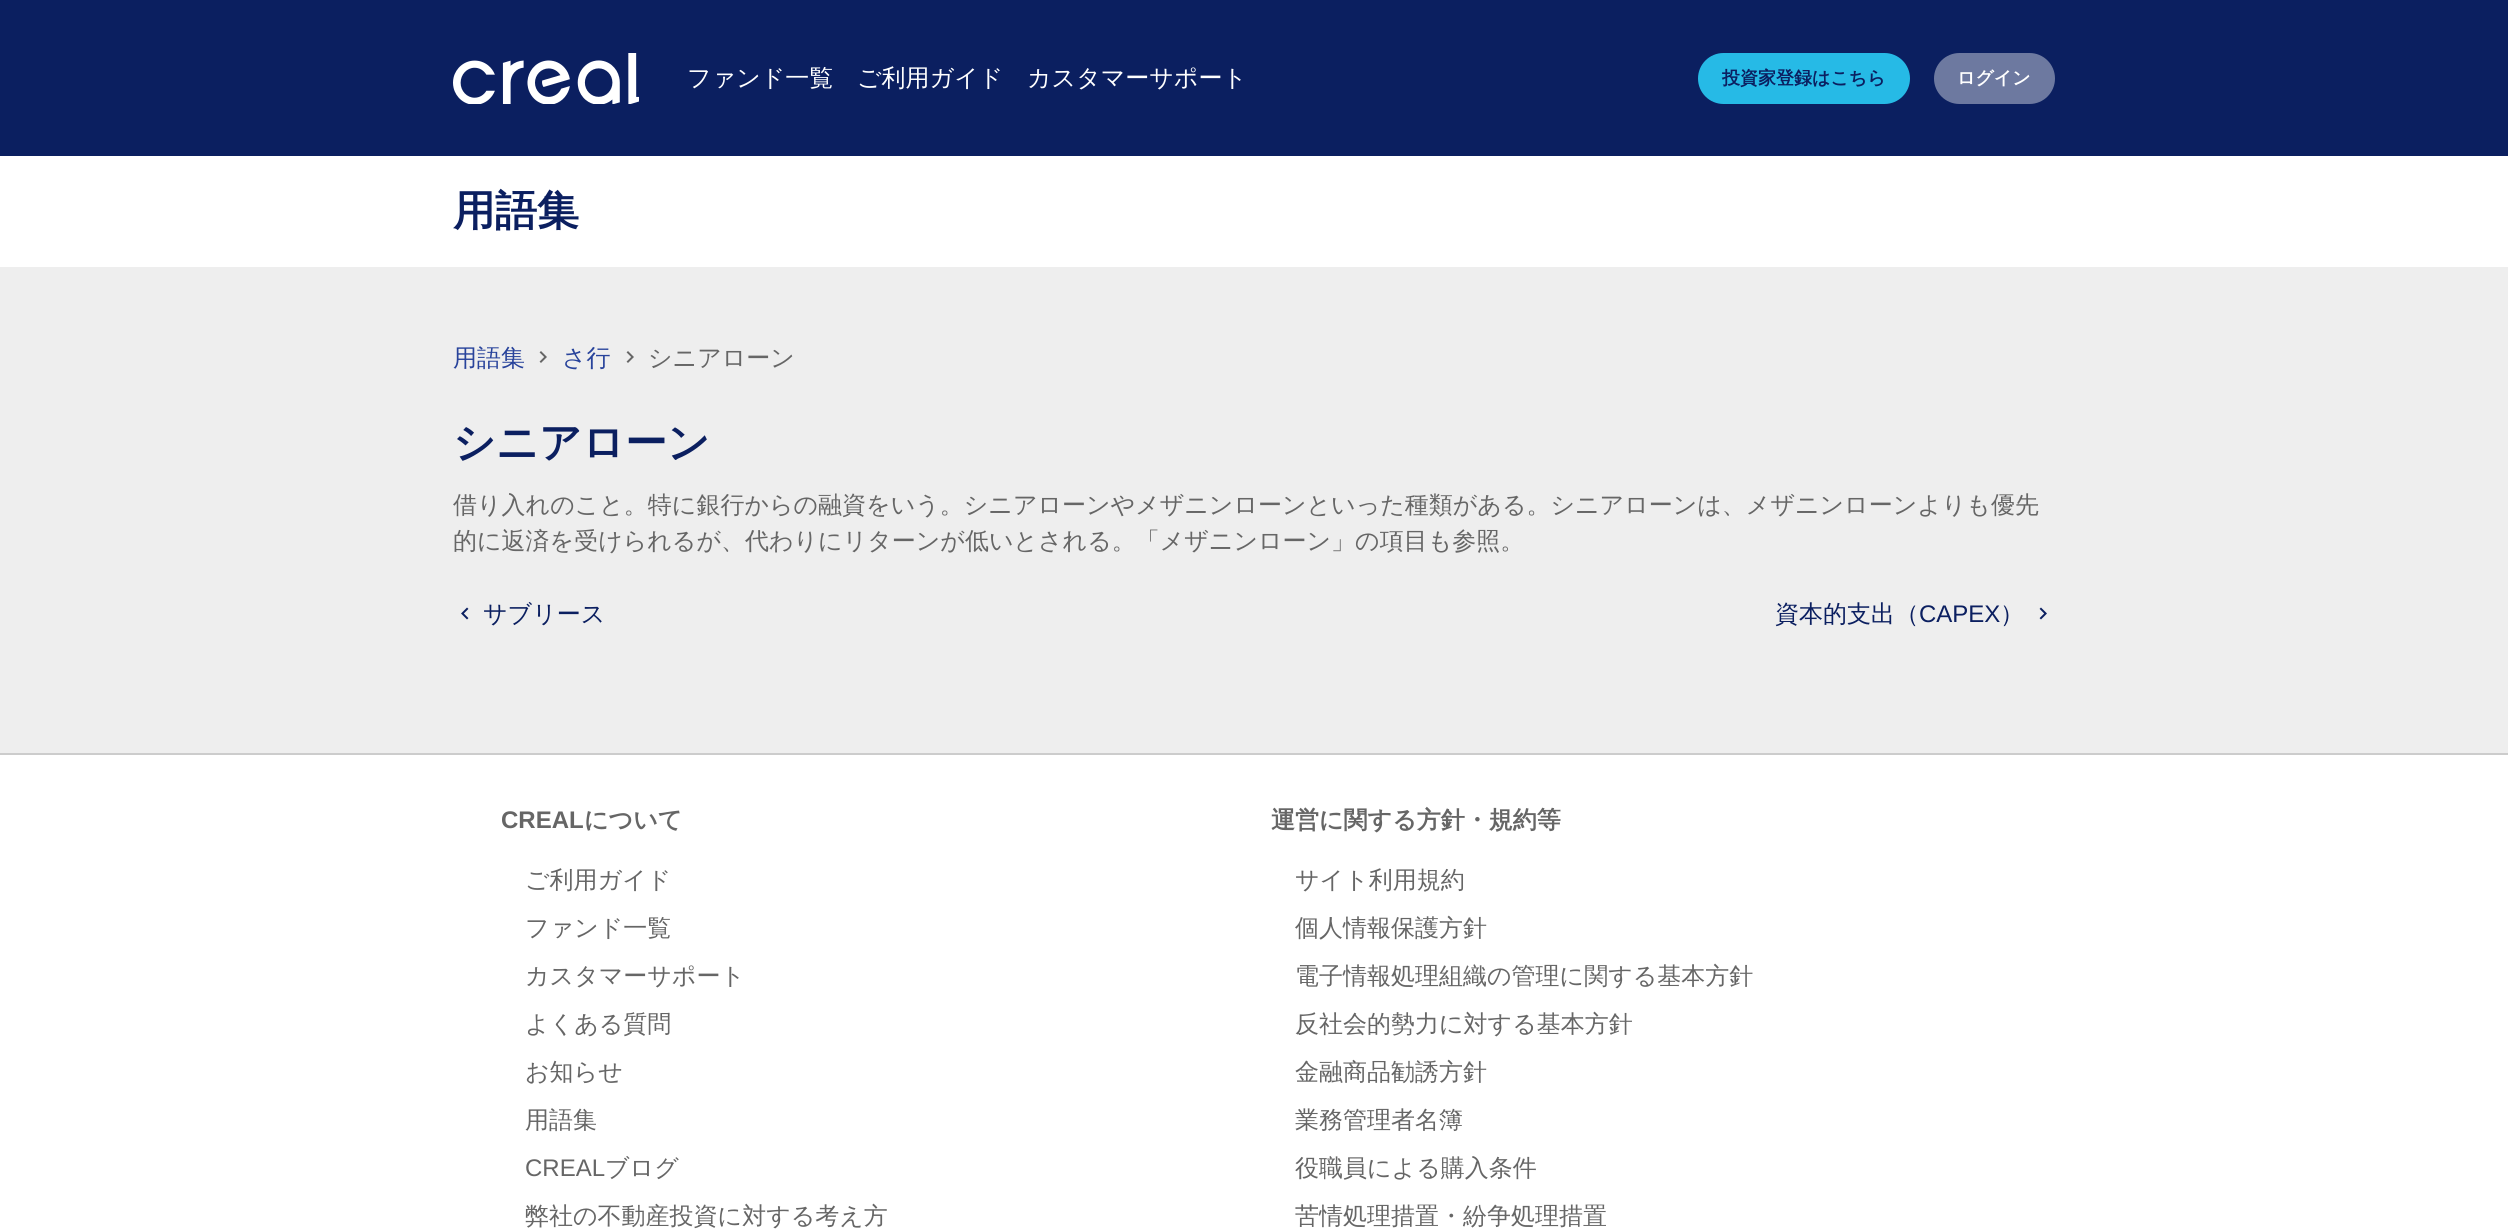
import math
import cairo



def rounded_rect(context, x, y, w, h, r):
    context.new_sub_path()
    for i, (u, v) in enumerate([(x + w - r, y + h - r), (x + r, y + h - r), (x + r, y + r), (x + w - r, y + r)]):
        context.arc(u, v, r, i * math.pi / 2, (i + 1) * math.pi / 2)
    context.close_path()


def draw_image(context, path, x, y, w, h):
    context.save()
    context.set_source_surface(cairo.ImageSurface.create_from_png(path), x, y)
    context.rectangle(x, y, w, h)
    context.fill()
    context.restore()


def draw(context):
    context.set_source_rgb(1, 1, 1)
    context.paint()
    context.set_source_rgb(11 / 255, 31 / 255, 96 / 255)
    context.rectangle(0, 0, 2508, 156)
    context.fill()
    draw_image(context, "images/1.png", 453, 53, 186, 51)
    context.set_source_rgb(38 / 255, 186 / 255, 230 / 255)
    rounded_rect(context, 1698, 53, 212, 51, 25.5)
    context.fill()
    context.set_source_rgb(109 / 255, 121 / 255, 160 / 255)
    rounded_rect(context, 1934, 53, 121, 51, 25.5)
    context.fill()
    context.set_source_rgb(238 / 255, 238 / 255, 238 / 255)
    context.rectangle(0, 267, 2508, 486)
    context.fill()
    draw_image(context, "images/2.png", 539, 351, 8, 12)
    draw_image(context, "images/2.png", 626, 351, 8, 12)
    draw_image(context, "images/3.png", 461, 607, 8, 13)
    draw_image(context, "images/4.png", 2039, 607, 8, 13)
    context.set_source_rgb(204 / 255, 204 / 255, 204 / 255)
    context.rectangle(0, 753, 2508, 2)
    context.fill()
    context.select_font_face("WenQuanYi Zen Hei Medium")
    context.set_font_size(24)
    context.set_source_rgb(1, 1, 1)
    context.move_to(687, 86)
    context.show_text("ファンド一覧")
    context.move_to(857, 86)
    context.show_text("ご利用ガイド")
    context.move_to(1027, 86)
    context.show_text("カスタマーサポート")
    context.select_font_face("WenQuanYi Zen Hei", cairo.FontSlant.NORMAL, cairo.FontWeight.BOLD)
    context.set_font_size(18)
    context.set_source_rgb(11 / 255, 31 / 255, 96 / 255)
    context.move_to(1722, 84)
    context.show_text("投資家登録はこちら")
    context.set_source_rgb(1, 1, 1)
    context.move_to(1957, 84)
    context.show_text("ログイン")
    context.set_font_size(42)
    context.set_source_rgb(11 / 255, 31 / 255, 96 / 255)
    context.move_to(453, 225)
    context.show_text("用語集")
    context.select_font_face("WenQuanYi Zen Hei Medium")
    context.set_font_size(24)
    context.set_source_rgb(40 / 255, 67 / 255, 155 / 255)
    context.move_to(453, 366)
    context.show_text("用語集")
    context.move_to(562, 366)
    context.show_text("さ行")
    context.set_source_rgb(102 / 255, 102 / 255, 102 / 255)
    context.move_to(648, 366)
    context.show_text("シニアローン")
    context.select_font_face("WenQuanYi Zen Hei", cairo.FontSlant.NORMAL, cairo.FontWeight.BOLD)
    context.set_font_size(42)
    context.set_source_rgb(11 / 255, 31 / 255, 96 / 255)
    context.move_to(453, 457)
    context.show_text("シニアローン")
    context.select_font_face("WenQuanYi Zen Hei Medium")
    context.set_font_size(24)
    context.set_source_rgb(102 / 255, 102 / 255, 102 / 255)
    context.move_to(453, 513)
    context.show_text("借り入れのこと。特に銀行からの融資をいう。シニアローンやメザニンローンといった種類がある。シニアローンは、メザニンローンよりも優先")
    context.move_to(453, 549)
    context.show_text("的に返済を受けられるが、代わりにリターンが低いとされる。「メザニンローン」の項目も参照。")
    context.set_source_rgb(11 / 255, 31 / 255, 96 / 255)
    context.move_to(483, 622)
    context.show_text("サブリース")
    context.move_to(1775, 622)
    context.show_text("資本的支出（")
    context.select_font_face("Liberation Sans")
    context.move_to(1919, 622)
    context.show_text("CAPEX")
    context.select_font_face("WenQuanYi Zen Hei Medium")
    context.move_to(2000, 622)
    context.show_text("）")
    context.select_font_face("Liberation Sans", cairo.FontSlant.NORMAL, cairo.FontWeight.BOLD)
    context.set_source_rgb(102 / 255, 102 / 255, 102 / 255)
    context.move_to(501, 828)
    context.show_text("CREAL")
    context.select_font_face("WenQuanYi Zen Hei", cairo.FontSlant.NORMAL, cairo.FontWeight.BOLD)
    context.move_to(584, 828)
    context.show_text("について")
    context.select_font_face("WenQuanYi Zen Hei Medium")
    context.move_to(525, 888)
    context.show_text("ご利用ガイド")
    context.move_to(525, 936)
    context.show_text("ファンド一覧")
    context.move_to(525, 984)
    context.show_text("カスタマーサポート")
    context.move_to(525, 1032)
    context.show_text("よくある質問")
    context.move_to(525, 1080)
    context.show_text("お知らせ")
    context.move_to(525, 1128)
    context.show_text("用語集")
    context.select_font_face("Liberation Sans")
    context.move_to(525, 1176)
    context.show_text("CREAL")
    context.select_font_face("WenQuanYi Zen Hei Medium")
    context.move_to(605, 1176)
    context.show_text("ブログ")
    context.move_to(525, 1224)
    context.show_text("弊社の不動産投資に対する考え方")
    context.select_font_face("WenQuanYi Zen Hei", cairo.FontSlant.NORMAL, cairo.FontWeight.BOLD)
    context.move_to(1271, 828)
    context.show_text("運営に関する方針・規約等")
    context.select_font_face("WenQuanYi Zen Hei Medium")
    context.move_to(1295, 888)
    context.show_text("サイト利用規約")
    context.move_to(1295, 936)
    context.show_text("個人情報保護方針")
    context.move_to(1295, 984)
    context.show_text("電子情報処理組織の管理に関する基本方針")
    context.move_to(1295, 1032)
    context.show_text("反社会的勢力に対する基本方針")
    context.move_to(1295, 1080)
    context.show_text("金融商品勧誘方針")
    context.move_to(1295, 1128)
    context.show_text("業務管理者名簿")
    context.move_to(1295, 1176)
    context.show_text("役職員による購入条件")
    context.move_to(1295, 1224)
    context.show_text("苦情処理措置・紛争処理措置")


surface = cairo.ImageSurface(cairo.Format.RGB24, 2508, 1231)
context = cairo.Context(surface)
options = cairo.FontOptions()
options.set_hint_metrics(cairo.HintMetrics.OFF)
options.set_hint_style(cairo.HintStyle.NONE)
context.set_font_options(options)
context.set_miter_limit(4)
draw(context)
surface.write_to_png("out.png")
